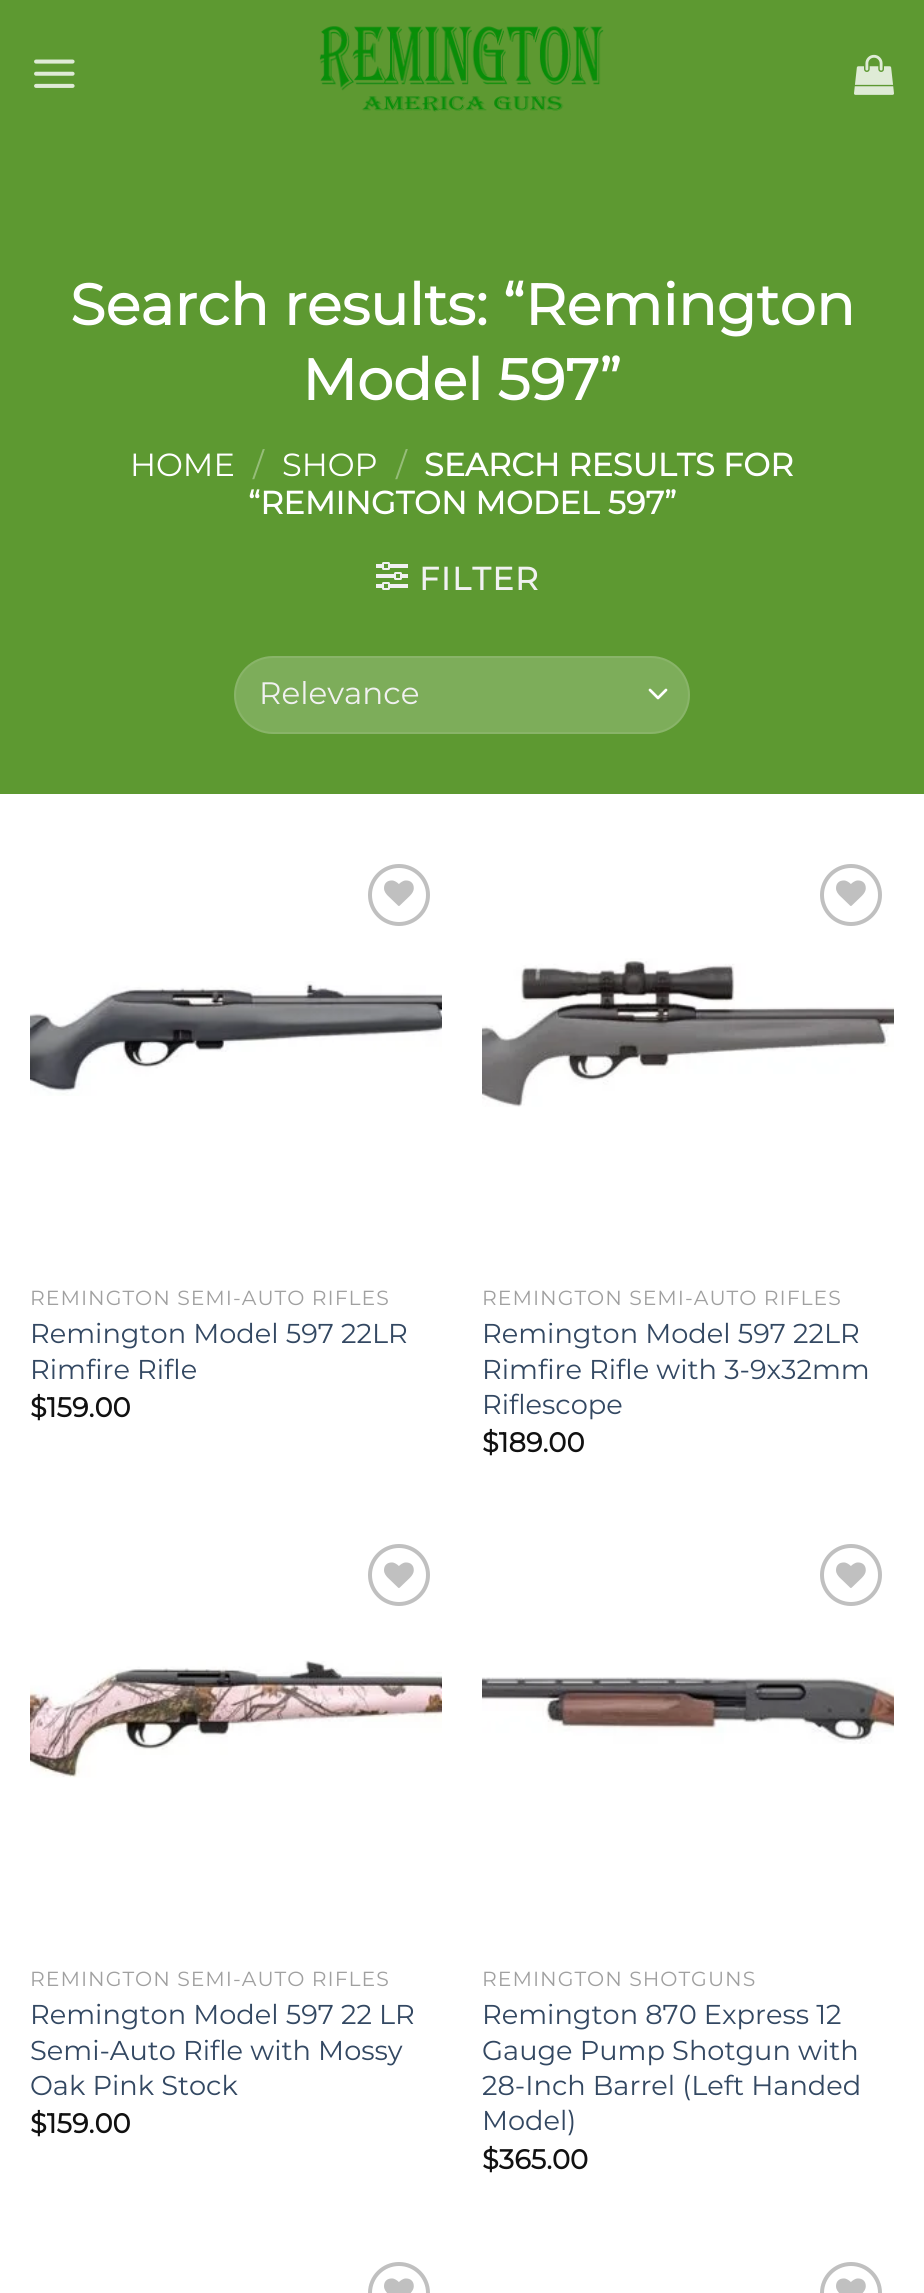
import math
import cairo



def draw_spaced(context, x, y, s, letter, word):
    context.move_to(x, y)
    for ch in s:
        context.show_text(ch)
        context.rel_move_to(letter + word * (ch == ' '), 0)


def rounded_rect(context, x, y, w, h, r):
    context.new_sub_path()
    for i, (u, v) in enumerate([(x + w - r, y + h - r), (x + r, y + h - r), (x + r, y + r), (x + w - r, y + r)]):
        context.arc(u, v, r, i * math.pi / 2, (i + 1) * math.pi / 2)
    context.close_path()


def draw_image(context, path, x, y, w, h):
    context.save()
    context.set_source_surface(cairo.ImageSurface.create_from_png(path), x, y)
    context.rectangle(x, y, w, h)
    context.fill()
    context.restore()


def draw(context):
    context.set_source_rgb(1, 1, 1)
    context.paint()
    context.set_source_rgb(93 / 255, 153 / 255, 49 / 255)
    context.rectangle(0, 0, 924, 794)
    context.fill()
    draw_image(context, "images/1.png", 34, 59, 41, 29)
    draw_image(context, "images/2.png", 319, 26, 285, 86)
    draw_image(context, "images/3.png", 854, 54, 40, 41)
    draw_image(context, "images/4.png", 376, 562, 32, 28)
    context.set_source_rgb(125 / 255, 173 / 255, 90 / 255)
    rounded_rect(context, 234, 656, 456, 78, 39)
    context.fill()
    context.new_path()
    context.move_to(650, 690)
    context.line_to(658, 698)
    context.line_to(666, 690)
    context.set_source_rgb(1, 1, 1)
    context.set_line_width(2.7)
    context.set_line_cap(cairo.LineCap.ROUND)
    context.set_line_join(cairo.LineJoin.ROUND)
    context.stroke()
    rounded_rect(context, 235, 657, 454, 76, 38)
    context.set_source_rgba(1, 1, 1, 0.09)
    context.set_line_width(2)
    context.set_line_cap(cairo.LineCap.BUTT)
    context.set_line_join(cairo.LineJoin.MITER)
    context.stroke()
    context.arc(399, 895, 29, 0, 2 * math.pi)
    context.set_source_rgb(192 / 255, 192 / 255, 192 / 255)
    context.set_line_width(4)
    context.stroke()
    draw_image(context, "images/5.png", 384, 880, 30, 26)
    draw_image(context, "images/6.png", 30, 981, 412, 115)
    context.arc(851, 895, 29, 0, 2 * math.pi)
    context.stroke()
    draw_image(context, "images/5.png", 836, 880, 30, 26)
    draw_image(context, "images/7.png", 482, 958, 412, 149)
    context.arc(399, 1575, 29, 0, 2 * math.pi)
    context.stroke()
    draw_image(context, "images/5.png", 384, 1562, 30, 26)
    draw_image(context, "images/8.png", 30, 1660, 412, 118)
    context.arc(851, 1575, 29, 0, 2 * math.pi)
    context.stroke()
    draw_image(context, "images/5.png", 836, 1562, 30, 26)
    draw_image(context, "images/9.png", 482, 1677, 412, 67)
    context.arc(399, 2293, 29, 0, 2 * math.pi)
    context.stroke()
    draw_image(context, "images/10.png", 384, 2278, 30, 15)
    context.arc(851, 2293, 29, 0, 2 * math.pi)
    context.stroke()
    draw_image(context, "images/10.png", 836, 2278, 30, 15)
    context.select_font_face("Montserrat", cairo.FontSlant.NORMAL, cairo.FontWeight.BOLD)
    context.set_font_size(57.6)
    context.set_source_rgb(1, 1, 1)
    context.move_to(70, 325)
    context.show_text("Search results: “Remington")
    context.move_to(302, 400)
    context.show_text("Model 597”")
    context.select_font_face("Montserrat Thin")
    context.set_font_size(32)
    context.move_to(130, 476)
    context.show_text("HOME")
    context.set_source_rgb(150 / 255, 189 / 255, 121 / 255)
    context.move_to(253, 476)
    context.show_text("/")
    context.set_source_rgb(1, 1, 1)
    context.move_to(282, 476)
    context.show_text("SHOP")
    context.set_source_rgb(150 / 255, 189 / 255, 121 / 255)
    context.move_to(396, 476)
    context.show_text("/")
    context.select_font_face("Montserrat", cairo.FontSlant.NORMAL, cairo.FontWeight.BOLD)
    context.set_source_rgb(1, 1, 1)
    context.move_to(424, 476)
    context.show_text("SEARCH RESULTS FOR")
    context.move_to(248, 514)
    context.show_text("“REMINGTON MODEL 597”")
    context.set_source_rgb(241 / 255, 241 / 255, 241 / 255)
    draw_spaced(context, 419, 590, "FILTER", 1.5, 0)
    context.select_font_face("Montserrat Thin")
    context.set_font_size(31)
    context.move_to(259, 704)
    context.show_text("Relevance")
    context.set_font_size(20.4)
    context.set_source_rgb(160 / 255, 160 / 255, 160 / 255)
    draw_spaced(context, 30, 1305, "REMINGTON SEMI-AUTO RIFLES", 1, 0)
    context.set_font_size(27.25)
    context.set_source_rgb(51 / 255, 72 / 255, 98 / 255)
    context.move_to(30, 1343)
    context.show_text("Remington Model 597 22LR")
    context.move_to(30, 1379)
    context.show_text("Rimfire Rifle")
    context.select_font_face("Montserrat", cairo.FontSlant.NORMAL, cairo.FontWeight.BOLD)
    context.set_source_rgb(17 / 255, 17 / 255, 17 / 255)
    context.move_to(30, 1417)
    context.show_text("$159.00")
    context.select_font_face("Montserrat Thin")
    context.set_font_size(20.4)
    context.set_source_rgb(160 / 255, 160 / 255, 160 / 255)
    draw_spaced(context, 482, 1305, "REMINGTON SEMI-AUTO RIFLES", 1, 0)
    context.set_font_size(27.25)
    context.set_source_rgb(51 / 255, 72 / 255, 98 / 255)
    context.move_to(482, 1343)
    context.show_text("Remington Model 597 22LR")
    context.move_to(482, 1379)
    context.show_text("Rimfire Rifle with 3-9x32mm")
    context.move_to(482, 1414)
    context.show_text("Riflescope")
    context.select_font_face("Montserrat", cairo.FontSlant.NORMAL, cairo.FontWeight.BOLD)
    context.set_source_rgb(17 / 255, 17 / 255, 17 / 255)
    context.move_to(482, 1452)
    context.show_text("$189.00")
    context.select_font_face("Montserrat Thin")
    context.set_font_size(20.4)
    context.set_source_rgb(160 / 255, 160 / 255, 160 / 255)
    draw_spaced(context, 30, 1986, "REMINGTON SEMI-AUTO RIFLES", 1, 0)
    context.set_font_size(27.25)
    context.set_source_rgb(51 / 255, 72 / 255, 98 / 255)
    context.move_to(30, 2024)
    context.show_text("Remington Model 597 22 LR")
    context.move_to(30, 2060)
    context.show_text("Semi-Auto Rifle with Mossy")
    context.move_to(30, 2095)
    context.show_text("Oak Pink Stock")
    context.select_font_face("Montserrat", cairo.FontSlant.NORMAL, cairo.FontWeight.BOLD)
    context.set_source_rgb(17 / 255, 17 / 255, 17 / 255)
    context.move_to(30, 2133)
    context.show_text("$159.00")
    context.select_font_face("Montserrat Thin")
    context.set_font_size(20.4)
    context.set_source_rgb(160 / 255, 160 / 255, 160 / 255)
    draw_spaced(context, 482, 1986, "REMINGTON SHOTGUNS", 1, 0)
    context.set_font_size(27.25)
    context.set_source_rgb(51 / 255, 72 / 255, 98 / 255)
    context.move_to(482, 2024)
    context.show_text("Remington 870 Express 12")
    context.move_to(482, 2060)
    context.show_text("Gauge Pump Shotgun with")
    context.move_to(482, 2095)
    context.show_text("28-Inch Barrel (Left Handed")
    context.move_to(482, 2130)
    context.show_text("Model)")
    context.select_font_face("Montserrat", cairo.FontSlant.NORMAL, cairo.FontWeight.BOLD)
    context.set_source_rgb(17 / 255, 17 / 255, 17 / 255)
    context.move_to(482, 2169)
    context.show_text("$365.00")


surface = cairo.ImageSurface(cairo.Format.RGB24, 924, 2293)
context = cairo.Context(surface)
options = cairo.FontOptions()
options.set_hint_metrics(cairo.HintMetrics.OFF)
options.set_hint_style(cairo.HintStyle.NONE)
context.set_font_options(options)
context.set_miter_limit(4)
draw(context)
surface.write_to_png("out.png")
